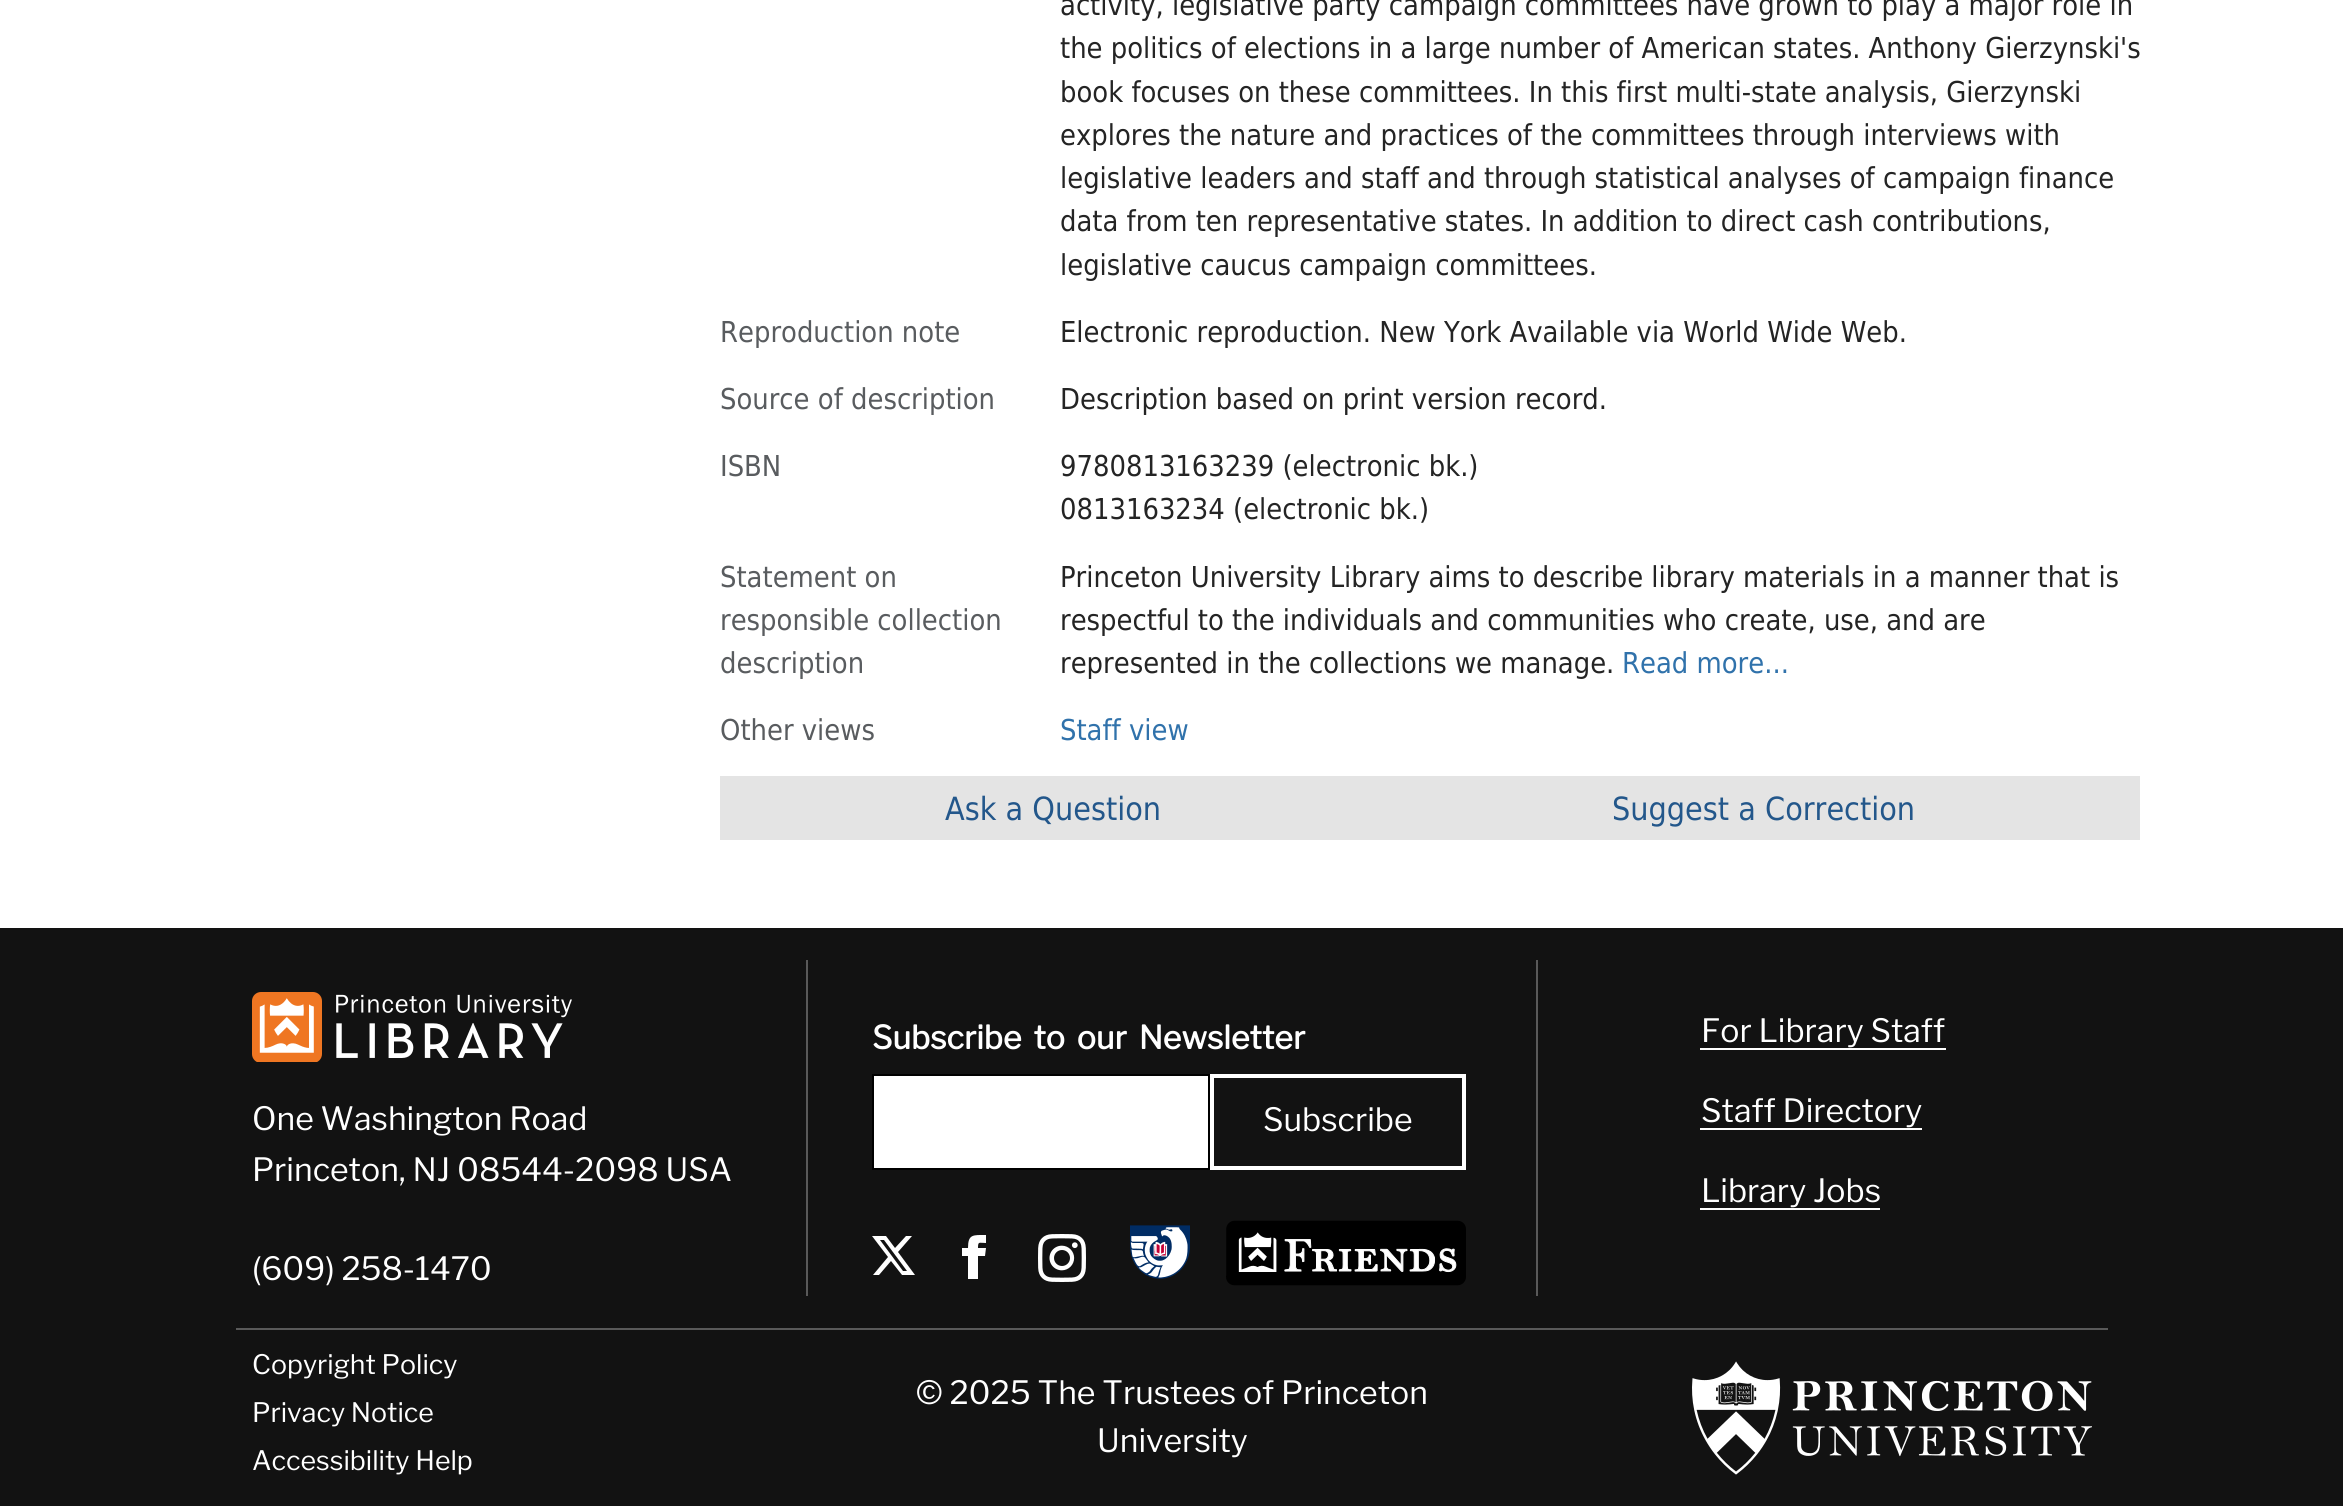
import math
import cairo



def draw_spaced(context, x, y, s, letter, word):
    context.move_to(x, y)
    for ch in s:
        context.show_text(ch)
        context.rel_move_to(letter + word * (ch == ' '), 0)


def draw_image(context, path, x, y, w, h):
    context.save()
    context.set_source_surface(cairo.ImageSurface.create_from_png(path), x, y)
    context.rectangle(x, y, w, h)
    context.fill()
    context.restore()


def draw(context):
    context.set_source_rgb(1, 1, 1)
    context.paint()
    context.set_source_rgb(228 / 255, 228 / 255, 228 / 255)
    context.rectangle(720, 776, 1420, 64)
    context.fill()
    context.set_source_rgb(18 / 255, 18 / 255, 18 / 255)
    context.rectangle(0, 928, 2343, 578)
    context.fill()
    context.set_source_rgb(89 / 255, 89 / 255, 89 / 255)
    context.rectangle(1536, 960, 2, 336)
    context.fill()
    context.set_source_rgb(1, 1, 1)
    context.rectangle(873, 1075, 336, 94)
    context.fill_preserve()
    context.set_source_rgb(0, 0, 0)
    context.stroke()
    context.rectangle(1212, 1076, 252, 92)
    context.set_source_rgb(1, 1, 1)
    context.set_line_width(4)
    context.stroke()
    context.new_path()
    context.move_to(906, 1236)
    context.line_to(912, 1236)
    context.line_to(898, 1252)
    context.line_to(915, 1275)
    context.line_to(902, 1275)
    context.line_to(891, 1261)
    context.line_to(879, 1275)
    context.line_to(873, 1275)
    context.line_to(888, 1257)
    context.line_to(872, 1236)
    context.line_to(886, 1236)
    context.line_to(895, 1248)
    context.close_path()
    context.move_to(903, 1271)
    context.line_to(907, 1271)
    context.line_to(884, 1240)
    context.line_to(880, 1240)
    context.close_path()
    context.fill()
    context.new_path()
    context.move_to(986, 1248)
    context.line_to(978, 1248)
    context.curve_to(978, 1241, 979, 1243, 986, 1243)
    context.line_to(986, 1235)
    context.curve_to(973, 1235, 968, 1234, 968, 1248)
    context.line_to(962, 1248)
    context.line_to(962, 1256)
    context.line_to(968, 1256)
    context.line_to(968, 1279)
    context.line_to(978, 1279)
    context.line_to(978, 1256)
    context.line_to(985, 1256)
    context.close_path()
    context.fill()
    draw_image(context, "images/1.png", 1038, 1234, 48, 48)
    draw_image(context, "images/2.png", 1130, 1225, 60, 54)
    draw_image(context, "images/3.png", 1226, 1220, 240, 66)
    context.rectangle(1700, 1048, 246, 2)
    context.fill()
    context.rectangle(1700, 1128, 222, 2)
    context.fill()
    context.rectangle(1700, 1208, 180, 2)
    context.fill()
    context.set_source_rgb(89 / 255, 89 / 255, 89 / 255)
    context.rectangle(806, 960, 2, 336)
    context.fill()
    draw_image(context, "images/4.png", 252, 992, 320, 70)
    context.rectangle(236, 1328, 1872, 2)
    context.fill()
    draw_image(context, "images/5.png", 1692, 1361, 400, 114)
    context.select_font_face("DejaVu Sans")
    context.set_font_size(28.8)
    context.set_source_rgb(36 / 255, 36 / 255, 36 / 255)
    context.move_to(1060, 15)
    context.show_text("activity, legislative party campaign committees have grown to play a major role in")
    context.move_to(1060, 58)
    context.show_text("the politics of elections in a large number of American states. Anthony Gierzynski's")
    context.move_to(1060, 102)
    context.show_text("book focuses on these committees. In this first multi-state analysis, Gierzynski")
    context.move_to(1060, 145)
    context.show_text("explores the nature and practices of the committees through interviews with")
    context.move_to(1060, 188)
    context.show_text("legislative leaders and staff and through statistical analyses of campaign finance")
    context.move_to(1060, 231)
    context.show_text("data from ten representative states. In addition to direct cash contributions,")
    context.move_to(1060, 275)
    context.show_text("legislative caucus campaign committees.")
    context.set_source_rgb(89 / 255, 92 / 255, 95 / 255)
    context.move_to(720, 342)
    context.show_text("Reproduction note")
    context.set_source_rgb(36 / 255, 36 / 255, 36 / 255)
    context.move_to(1060, 342)
    context.show_text("Electronic reproduction. New York Available via World Wide Web.")
    context.set_source_rgb(89 / 255, 92 / 255, 95 / 255)
    context.move_to(720, 409)
    context.show_text("Source of description")
    context.set_source_rgb(36 / 255, 36 / 255, 36 / 255)
    context.move_to(1060, 409)
    context.show_text("Description based on print version record.")
    context.set_source_rgb(89 / 255, 92 / 255, 95 / 255)
    context.move_to(720, 476)
    context.show_text("ISBN")
    context.set_source_rgb(36 / 255, 36 / 255, 36 / 255)
    context.move_to(1060, 476)
    context.show_text("9780813163239 (electronic bk.)")
    context.move_to(1060, 519)
    context.show_text("0813163234 (electronic bk.)")
    context.set_source_rgb(89 / 255, 92 / 255, 95 / 255)
    context.move_to(720, 587)
    context.show_text("Statement on")
    context.move_to(720, 630)
    context.show_text("responsible collection")
    context.move_to(720, 673)
    context.show_text("description")
    context.set_source_rgb(36 / 255, 36 / 255, 36 / 255)
    context.move_to(1060, 587)
    context.show_text("Princeton University Library aims to describe library materials in a manner that is")
    context.move_to(1060, 630)
    context.show_text("respectful to the individuals and communities who create, use, and are")
    context.move_to(1060, 673)
    context.show_text("represented in the collections we manage.")
    context.set_source_rgb(48 / 255, 114 / 255, 171 / 255)
    context.move_to(1622, 673)
    context.show_text("Read more...")
    context.set_source_rgb(89 / 255, 92 / 255, 95 / 255)
    context.move_to(720, 740)
    context.show_text("Other views")
    context.set_source_rgb(48 / 255, 114 / 255, 171 / 255)
    context.move_to(1060, 740)
    context.show_text("Staff view")
    context.set_font_size(32)
    context.set_source_rgb(35 / 255, 87 / 255, 139 / 255)
    context.move_to(945, 820)
    context.show_text("Ask a Question")
    context.move_to(1612, 820)
    context.show_text("Suggest a Correction")
    context.select_font_face("Libre Franklin", cairo.FontSlant.NORMAL, cairo.FontWeight.BOLD)
    context.set_source_rgb(1, 1, 1)
    draw_spaced(context, 872, 1049, "Subscribe to our Newsletter", 0, 5)
    context.select_font_face("Libre Franklin")
    context.move_to(1263, 1131)
    context.show_text("Subscribe")
    context.move_to(1701, 1042)
    context.show_text("For Library Staff")
    context.move_to(1701, 1122)
    context.show_text("Staff Directory")
    context.move_to(1701, 1202)
    context.show_text("Library Jobs")
    context.move_to(252, 1130)
    context.show_text("One Washington Road")
    context.move_to(252, 1181)
    context.show_text("Princeton, NJ 08544-2098 USA")
    context.move_to(252, 1280)
    context.show_text("(609) 258-1470")
    context.set_font_size(26.75)
    context.move_to(252, 1374)
    context.show_text("Copyright Policy")
    context.move_to(252, 1422)
    context.show_text("Privacy Notice")
    context.move_to(252, 1470)
    context.show_text("Accessibility Help")
    context.set_font_size(32)
    context.move_to(916, 1404)
    context.show_text("© 2025 The Trustees of Princeton")
    context.move_to(1097, 1452)
    context.show_text("University")


surface = cairo.ImageSurface(cairo.Format.RGB24, 2343, 1506)
context = cairo.Context(surface)
options = cairo.FontOptions()
options.set_hint_metrics(cairo.HintMetrics.OFF)
options.set_hint_style(cairo.HintStyle.NONE)
context.set_font_options(options)
context.set_miter_limit(4)
draw(context)
surface.write_to_png("out.png")
